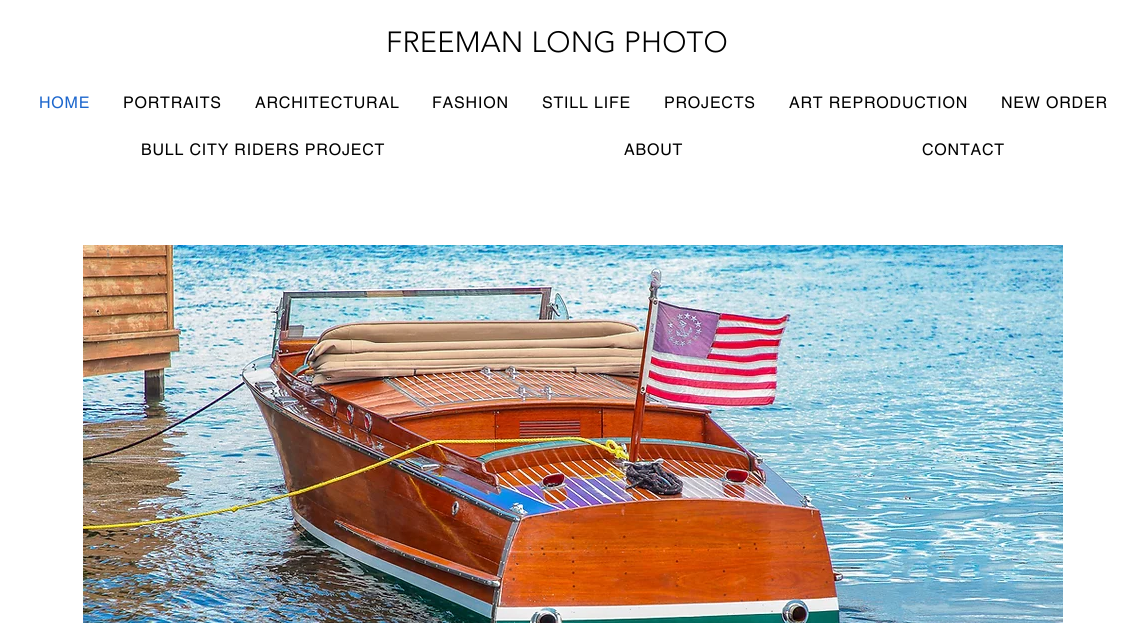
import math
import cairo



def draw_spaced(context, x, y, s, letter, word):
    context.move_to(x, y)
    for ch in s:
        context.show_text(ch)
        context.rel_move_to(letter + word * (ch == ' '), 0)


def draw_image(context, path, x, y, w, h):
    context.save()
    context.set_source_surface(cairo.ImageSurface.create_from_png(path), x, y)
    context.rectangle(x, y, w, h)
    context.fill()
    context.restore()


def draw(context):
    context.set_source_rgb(1, 1, 1)
    context.paint()
    draw_image(context, "images/1.png", 83, 245, 980, 378)
    context.select_font_face("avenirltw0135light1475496 Light")
    context.set_font_size(29)
    context.set_source_rgb(0, 0, 0)
    draw_spaced(context, 386, 52, "FREEMAN LONG PHOTO", 0.25, 0)
    context.select_font_face("helvetica")
    context.set_font_size(16)
    context.set_source_rgb(29 / 255, 103 / 255, 205 / 255)
    draw_spaced(context, 39, 108, "HOME", 0.8, 0)
    context.set_source_rgb(0, 0, 0)
    draw_spaced(context, 123, 108, "PORTRAITS", 0.8, 0)
    draw_spaced(context, 255, 108, "ARCHITECTURAL", 0.8, 0)
    draw_spaced(context, 432, 108, "FASHION", 0.8, 0)
    draw_spaced(context, 542, 108, "STILL LIFE", 0.8, 0)
    draw_spaced(context, 664, 108, "PROJECTS", 0.8, 0)
    draw_spaced(context, 789, 108, "ART REPRODUCTION", 0.8, 0)
    draw_spaced(context, 1001, 108, "NEW ORDER", 0.8, 0)
    draw_spaced(context, 141, 155, "BULL CITY RIDERS PROJECT", 0.8, 0)
    draw_spaced(context, 624, 155, "ABOUT", 0.8, 0)
    draw_spaced(context, 922, 155, "CONTACT", 0.8, 0)


surface = cairo.ImageSurface(cairo.Format.RGB24, 1146, 623)
context = cairo.Context(surface)
options = cairo.FontOptions()
options.set_hint_metrics(cairo.HintMetrics.OFF)
options.set_hint_style(cairo.HintStyle.NONE)
context.set_font_options(options)
context.set_miter_limit(4)
draw(context)
surface.write_to_png("out.png")
